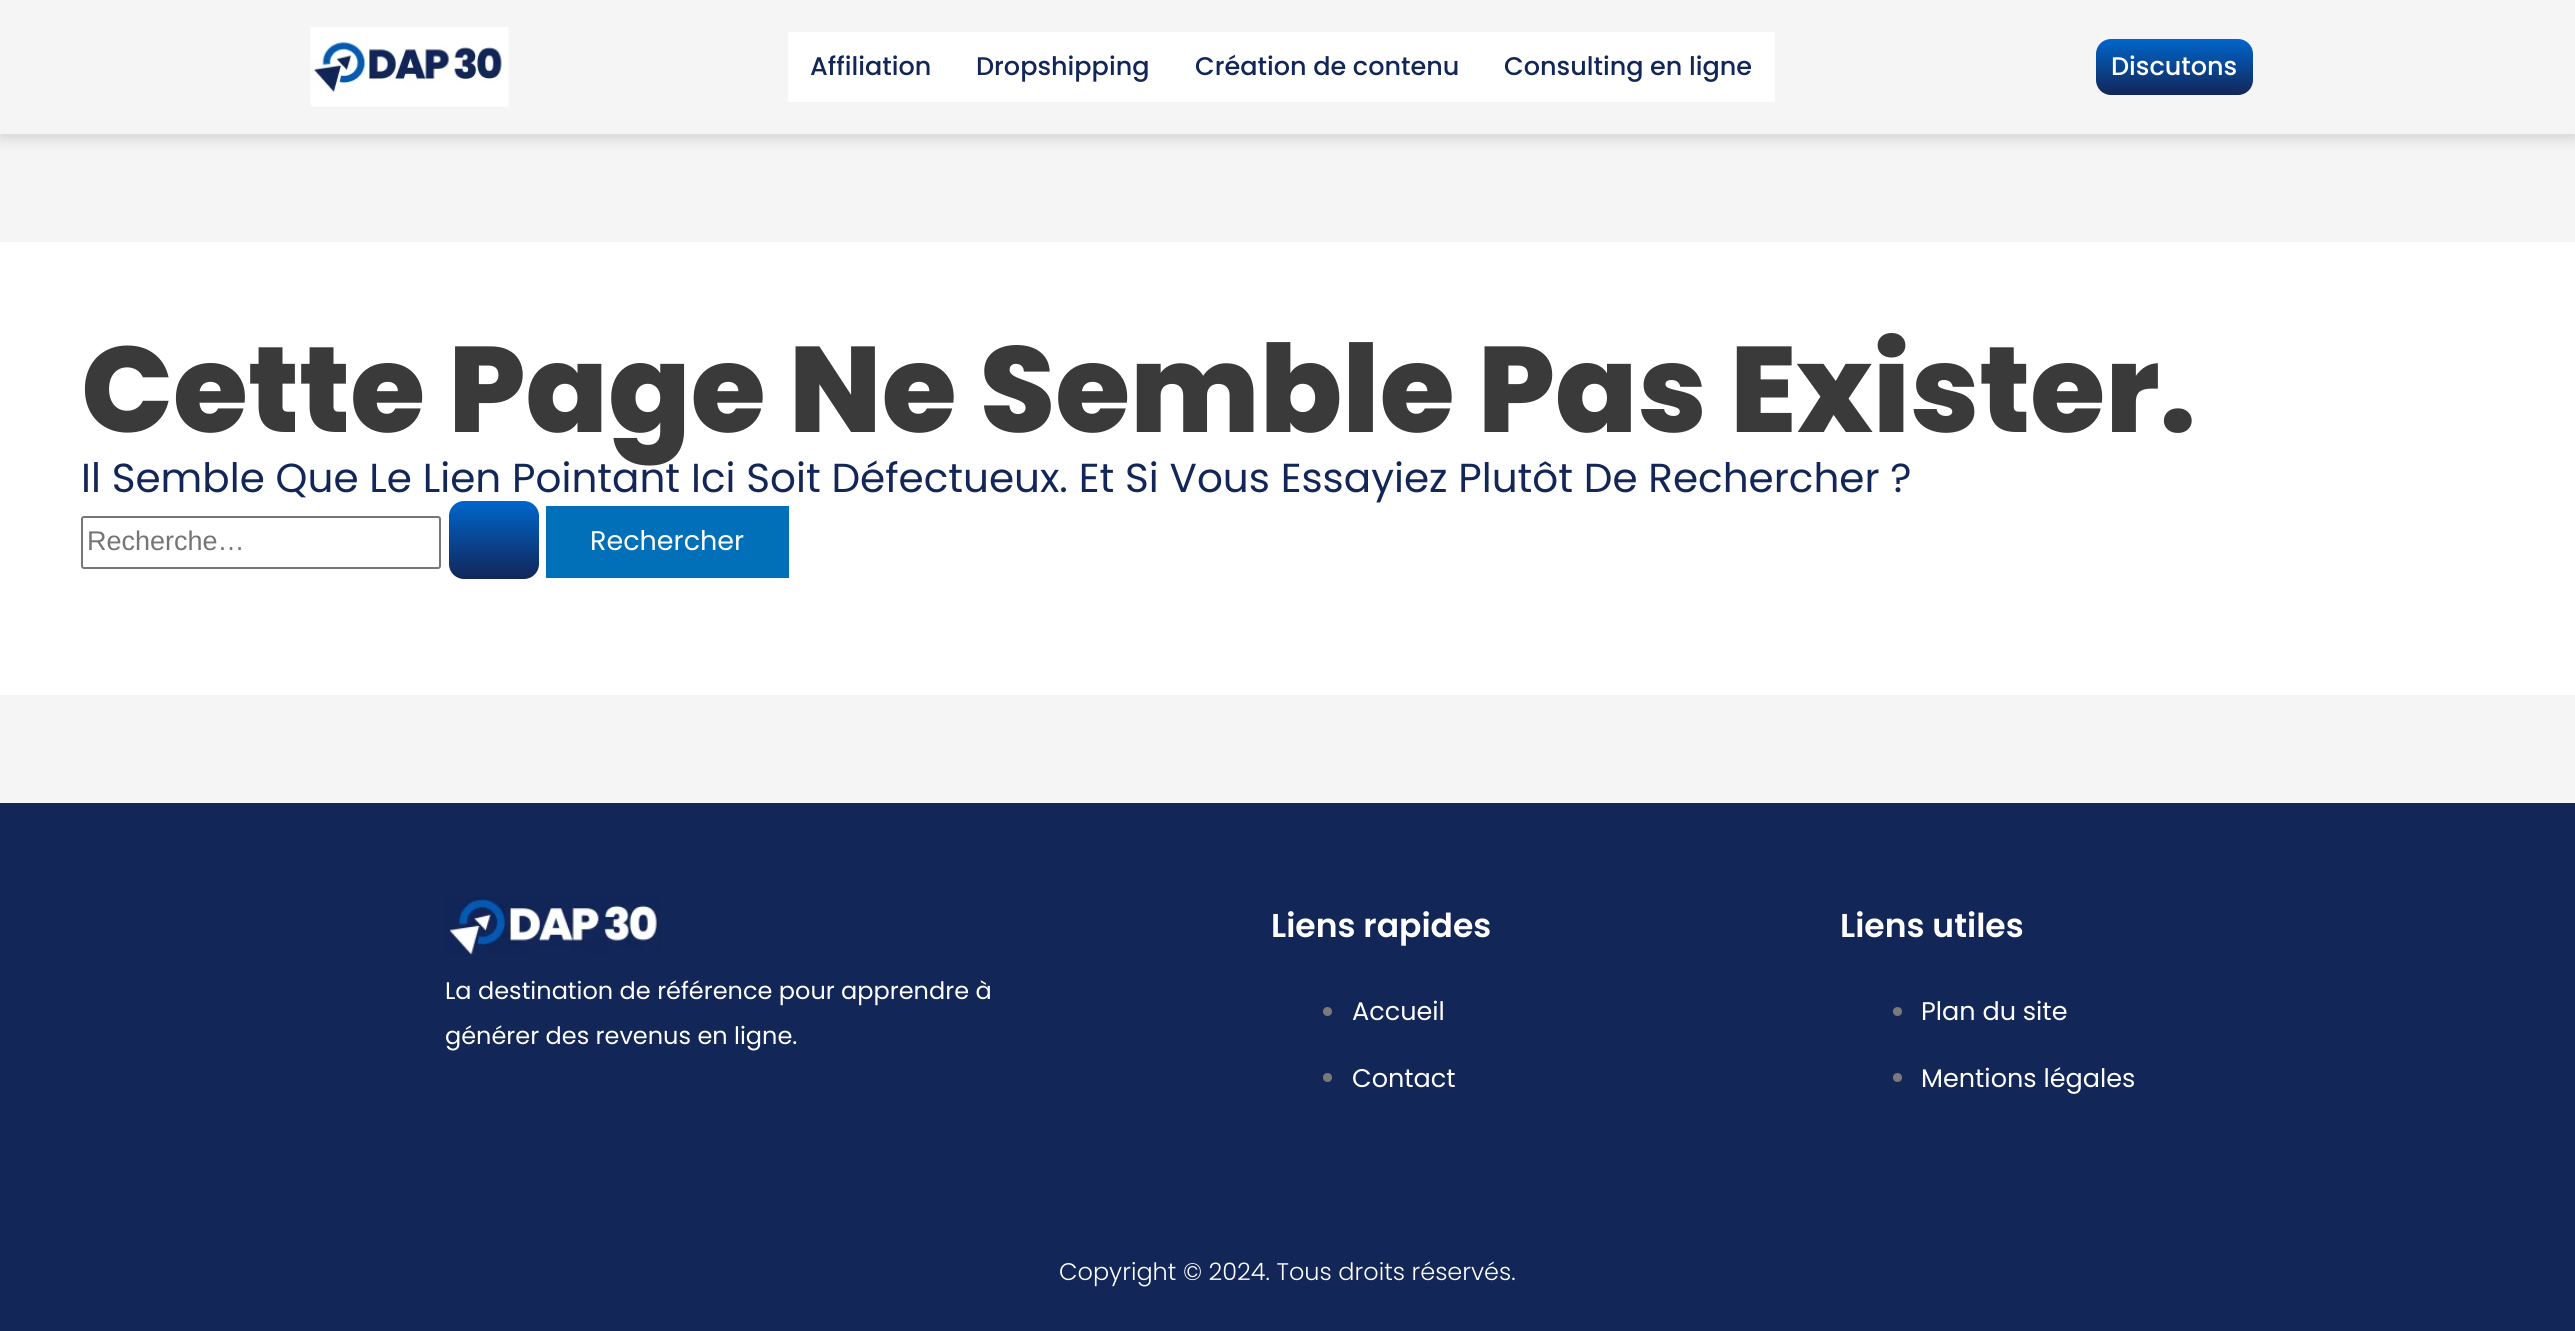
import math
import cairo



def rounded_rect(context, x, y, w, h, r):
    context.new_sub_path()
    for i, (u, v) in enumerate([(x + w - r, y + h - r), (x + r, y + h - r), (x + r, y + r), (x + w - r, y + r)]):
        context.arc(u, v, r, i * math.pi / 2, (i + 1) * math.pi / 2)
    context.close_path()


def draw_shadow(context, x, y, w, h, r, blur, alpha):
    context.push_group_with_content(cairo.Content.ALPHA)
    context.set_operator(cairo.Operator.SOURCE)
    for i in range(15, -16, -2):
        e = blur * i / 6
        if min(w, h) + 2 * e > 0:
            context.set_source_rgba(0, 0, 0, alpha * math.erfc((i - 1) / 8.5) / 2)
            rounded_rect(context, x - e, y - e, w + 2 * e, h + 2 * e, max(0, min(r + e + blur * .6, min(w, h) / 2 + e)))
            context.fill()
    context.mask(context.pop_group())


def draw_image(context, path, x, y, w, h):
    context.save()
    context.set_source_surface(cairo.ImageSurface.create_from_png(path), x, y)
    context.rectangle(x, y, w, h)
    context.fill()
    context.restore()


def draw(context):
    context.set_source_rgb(245 / 255, 245 / 255, 245 / 255)
    context.paint()
    context.save()
    context.set_fill_rule(cairo.FillRule.EVEN_ODD)
    context.new_path()
    context.move_to(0, 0)
    context.line_to(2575, 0)
    context.line_to(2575, 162)
    context.line_to(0, 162)
    context.close_path()
    context.move_to(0, 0)
    context.line_to(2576, 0)
    context.line_to(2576, 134)
    context.line_to(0, 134)
    context.close_path()
    context.clip()
    context.set_source_rgb(0, 0, 0)
    draw_shadow(context, 0, 5, 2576, 133, 0, 7.5, 0.15)
    context.restore()
    draw_image(context, "images/1.png", 310, 27, 199, 80)
    context.set_source_rgb(1, 1, 1)
    context.rectangle(788, 32, 987, 70)
    context.fill()
    gradient = cairo.LinearGradient(2174, 39, 2174, 95)
    gradient.add_color_stop_rgba(0, 0, 102 / 255, 204 / 255, 1)
    gradient.add_color_stop_rgba(1, 18 / 255, 38 / 255, 88 / 255, 1)
    context.set_source(gradient)
    rounded_rect(context, 2096, 39, 157, 56, 15)
    context.fill()
    context.set_source_rgb(1, 1, 1)
    context.rectangle(0, 242, 2575, 453)
    context.fill()
    rounded_rect(context, 82, 517, 358, 51, 2)
    context.set_source_rgb(118 / 255, 118 / 255, 118 / 255)
    context.stroke()
    context.set_source_rgb(1 / 255, 112 / 255, 185 / 255)
    context.rectangle(546, 506, 243, 72)
    context.fill()
    context.set_source_rgb(18 / 255, 38 / 255, 88 / 255)
    context.rectangle(0, 803, 2575, 528)
    context.fill()
    draw_image(context, "images/2.png", 445, 897, 216, 58)
    context.set_source_rgb(122 / 255, 122 / 255, 122 / 255)
    context.arc(1327.5, 1011.5, 4.5, 0, 2 * math.pi)
    context.fill()
    context.arc(1327.5, 1077.5, 4.5, 0, 2 * math.pi)
    context.fill()
    context.arc(1897.5, 1011.5, 4.5, 0, 2 * math.pi)
    context.fill()
    context.arc(1897.5, 1077.5, 4.5, 0, 2 * math.pi)
    context.fill()
    context.select_font_face("Poppins Medium")
    context.set_font_size(25.5)
    context.set_source_rgb(18 / 255, 38 / 255, 88 / 255)
    context.move_to(810, 75)
    context.show_text("Affiliation")
    context.move_to(976, 75)
    context.show_text("Dropshipping")
    context.move_to(1195, 75)
    context.show_text("Création de contenu")
    context.move_to(1504, 75)
    context.show_text("Consulting en ligne")
    context.set_source_rgb(1, 1, 1)
    context.move_to(2111, 75)
    context.show_text("Discutons")
    context.select_font_face("Poppins ExtraBold")
    context.set_font_size(121.5)
    context.set_source_rgb(58 / 255, 58 / 255, 58 / 255)
    context.move_to(81, 432)
    context.show_text("Cette Page Ne Semble Pas Exister.")
    context.select_font_face("Poppins")
    context.set_font_size(40.5)
    context.set_source_rgb(18 / 255, 38 / 255, 88 / 255)
    context.move_to(81, 492)
    context.show_text("Il Semble Que Le Lien Pointant Ici Soit Défectueux. Et Si Vous Essayiez Plutôt De Rechercher ?")
    context.select_font_face("Liberation Sans")
    context.set_font_size(27)
    context.set_source_rgb(117 / 255, 117 / 255, 117 / 255)
    context.move_to(87, 550)
    context.show_text("Recherche…")
    gradient = cairo.LinearGradient(494, 501, 494, 579)
    gradient.add_color_stop_rgba(0, 0, 102 / 255, 204 / 255, 1)
    gradient.add_color_stop_rgba(1, 18 / 255, 38 / 255, 88 / 255, 1)
    context.set_source(gradient)
    rounded_rect(context, 449, 501, 90, 78, 15)
    context.fill()
    context.select_font_face("Poppins")
    context.set_source_rgb(1, 1, 1)
    context.move_to(590, 550)
    context.show_text("Rechercher")
    context.set_font_size(24)
    context.move_to(445, 999)
    context.show_text("La destination de référence pour apprendre à")
    context.move_to(445, 1044)
    context.show_text("générer des revenus en ligne.")
    context.select_font_face("Poppins SemiBold")
    context.set_font_size(33)
    context.move_to(1271, 937)
    context.show_text("Liens rapides")
    context.select_font_face("Poppins")
    context.set_font_size(25.5)
    context.move_to(1352, 1020)
    context.show_text("Accueil")
    context.move_to(1352, 1087)
    context.show_text("Contact")
    context.select_font_face("Poppins SemiBold")
    context.set_font_size(33)
    context.move_to(1840, 937)
    context.show_text("Liens utiles")
    context.select_font_face("Poppins")
    context.set_font_size(25.5)
    context.move_to(1921, 1020)
    context.show_text("Plan du site")
    context.move_to(1921, 1087)
    context.show_text("Mentions légales")
    context.select_font_face("Poppins Light")
    context.set_font_size(24)
    context.move_to(1059, 1280)
    context.show_text("Copyright © 2024. Tous droits réservés.")


surface = cairo.ImageSurface(cairo.Format.RGB24, 2575, 1331)
context = cairo.Context(surface)
options = cairo.FontOptions()
options.set_hint_metrics(cairo.HintMetrics.OFF)
options.set_hint_style(cairo.HintStyle.NONE)
context.set_font_options(options)
context.set_miter_limit(4)
draw(context)
surface.write_to_png("out.png")
